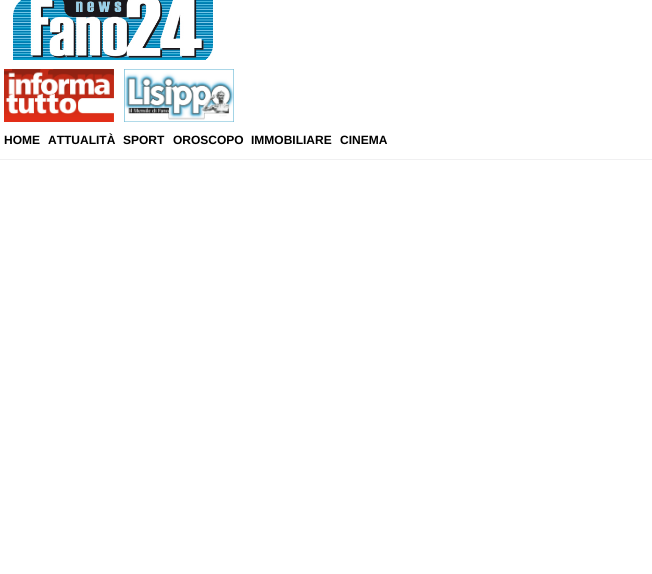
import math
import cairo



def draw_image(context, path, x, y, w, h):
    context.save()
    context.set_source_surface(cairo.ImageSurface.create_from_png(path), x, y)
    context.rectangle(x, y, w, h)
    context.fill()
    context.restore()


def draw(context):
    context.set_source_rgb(1, 1, 1)
    context.paint()
    context.set_source_rgb(240 / 255, 240 / 255, 241 / 255)
    context.rectangle(0, 159, 652, 1)
    context.fill()
    draw_image(context, "images/1.png", 13, 0, 200, 60)
    draw_image(context, "images/2.png", 4, 69, 110, 53)
    draw_image(context, "images/3.png", 124, 69, 110, 53)
    context.select_font_face("Liberation Sans", cairo.FontSlant.NORMAL, cairo.FontWeight.BOLD)
    context.set_font_size(12)
    context.set_source_rgb(0, 0, 0)
    context.move_to(4, 144)
    context.show_text("HOME")
    context.move_to(48, 144)
    context.show_text("ATTUALITÀ")
    context.move_to(123, 144)
    context.show_text("SPORT")
    context.move_to(173, 144)
    context.show_text("OROSCOPO")
    context.move_to(251, 144)
    context.show_text("IMMOBILIARE")
    context.move_to(340, 144)
    context.show_text("CINEMA")


surface = cairo.ImageSurface(cairo.Format.RGB24, 652, 574)
context = cairo.Context(surface)
options = cairo.FontOptions()
options.set_hint_metrics(cairo.HintMetrics.OFF)
options.set_hint_style(cairo.HintStyle.NONE)
context.set_font_options(options)
context.set_miter_limit(4)
draw(context)
surface.write_to_png("out.png")
